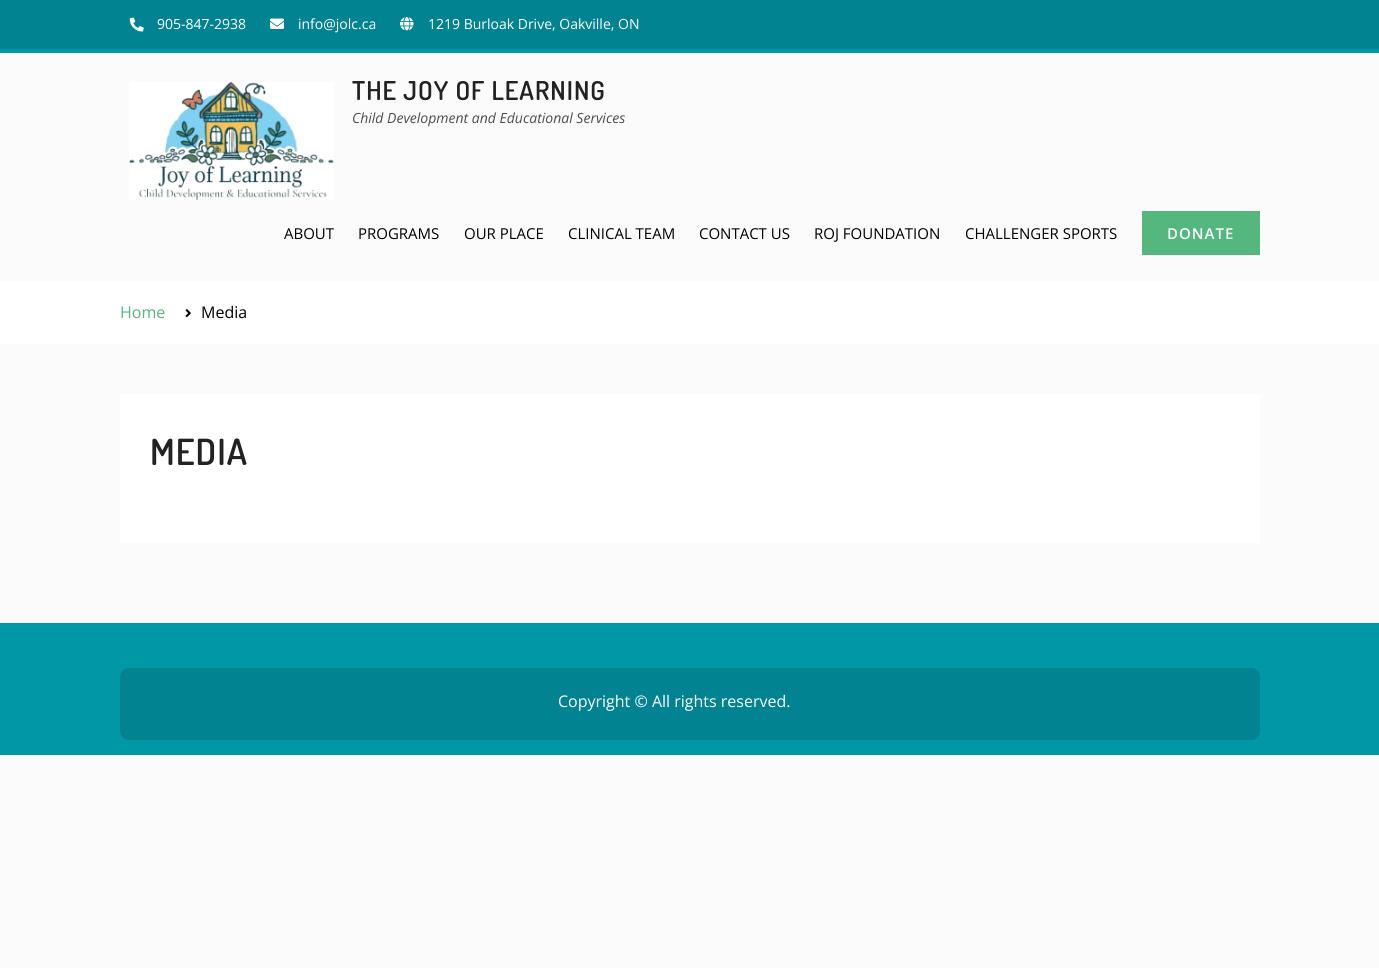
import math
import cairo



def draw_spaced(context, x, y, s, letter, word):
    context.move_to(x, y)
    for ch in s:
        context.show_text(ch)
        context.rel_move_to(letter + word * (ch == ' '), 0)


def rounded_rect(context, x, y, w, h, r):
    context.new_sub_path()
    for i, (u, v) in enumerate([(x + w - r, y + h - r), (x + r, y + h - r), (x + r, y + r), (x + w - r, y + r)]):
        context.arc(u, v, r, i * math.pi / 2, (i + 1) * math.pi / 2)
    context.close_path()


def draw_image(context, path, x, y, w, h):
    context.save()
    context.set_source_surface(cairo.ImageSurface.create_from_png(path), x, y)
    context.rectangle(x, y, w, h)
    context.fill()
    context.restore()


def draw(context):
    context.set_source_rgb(251 / 255, 251 / 255, 251 / 255)
    context.paint()
    context.set_source_rgb(1 / 255, 131 / 255, 145 / 255)
    context.rectangle(0, 0, 1379, 49)
    context.fill()
    draw_image(context, "images/1.png", 129, 17, 15, 15)
    draw_image(context, "images/2.png", 270, 18, 14, 11)
    draw_image(context, "images/3.png", 400, 17, 14, 14)
    context.set_source_rgb(0, 151 / 255, 167 / 255)
    context.rectangle(0, 49, 1379, 4)
    context.fill()
    draw_image(context, "images/4.png", 129, 82, 205, 118)
    context.set_source_rgb(84 / 255, 183 / 255, 126 / 255)
    context.rectangle(1142, 211, 118, 44)
    context.fill()
    context.set_source_rgb(1, 1, 1)
    context.rectangle(0, 281, 1379, 63)
    context.fill()
    draw_image(context, "images/5.png", 185, 309, 6, 9)
    context.rectangle(120, 394, 1140, 149)
    context.fill()
    context.set_source_rgb(0, 151 / 255, 167 / 255)
    context.rectangle(0, 623, 1379, 132)
    context.fill()
    context.set_source_rgb(1 / 255, 131 / 255, 145 / 255)
    rounded_rect(context, 120, 668, 1140, 72, 9)
    context.fill()
    context.select_font_face("Open Sans")
    context.set_font_size(14)
    context.set_source_rgb(1, 1, 1)
    context.move_to(157, 29)
    context.show_text("905-847-2938")
    context.move_to(298, 29)
    context.show_text("info@jolc.ca")
    context.move_to(428, 29)
    context.show_text("1219 Burloak Drive, Oakville, ON")
    context.select_font_face("Dosis SemiBold")
    context.set_font_size(26)
    context.set_source_rgb(34 / 255, 34 / 255, 34 / 255)
    draw_spaced(context, 352, 100, "THE JOY OF LEARNING", 1, 0)
    context.select_font_face("Open Sans", cairo.FontSlant.ITALIC)
    context.set_font_size(14)
    context.set_source_rgb(77 / 255, 77 / 255, 77 / 255)
    context.move_to(352, 123)
    context.show_text("Child Development and Educational Services")
    context.select_font_face("Open Sans")
    context.set_font_size(15)
    context.set_source_rgb(0, 0, 0)
    context.move_to(284, 239)
    context.show_text("ABOUT")
    context.move_to(358, 239)
    context.show_text("PROGRAMS")
    context.move_to(464, 239)
    context.show_text("OUR PLACE")
    context.move_to(568, 239)
    context.show_text("CLINICAL TEAM")
    context.move_to(699, 239)
    context.show_text("CONTACT US")
    context.move_to(814, 239)
    context.show_text("ROJ FOUNDATION")
    context.move_to(965, 239)
    context.show_text("CHALLENGER SPORTS")
    context.select_font_face("Open Sans SemiBold")
    context.set_source_rgb(1, 1, 1)
    draw_spaced(context, 1167, 239, "DONATE", 1, 0)
    context.select_font_face("Open Sans")
    context.set_font_size(16)
    context.set_source_rgb(84 / 255, 183 / 255, 126 / 255)
    context.move_to(120, 318)
    context.show_text("Home")
    context.set_source_rgb(0, 0, 0)
    context.move_to(201, 318)
    context.show_text("Media")
    context.select_font_face("Dosis SemiBold")
    context.set_font_size(36)
    context.set_source_rgb(34 / 255, 34 / 255, 34 / 255)
    draw_spaced(context, 150, 465, "MEDIA", 1, 0)
    context.select_font_face("Open Sans")
    context.set_font_size(16)
    context.set_source_rgb(1, 1, 1)
    context.move_to(558, 707)
    context.show_text("Copyright © All rights reserved.")


surface = cairo.ImageSurface(cairo.Format.RGB24, 1379, 968)
context = cairo.Context(surface)
options = cairo.FontOptions()
options.set_hint_metrics(cairo.HintMetrics.OFF)
options.set_hint_style(cairo.HintStyle.NONE)
context.set_font_options(options)
context.set_miter_limit(4)
draw(context)
surface.write_to_png("out.png")
